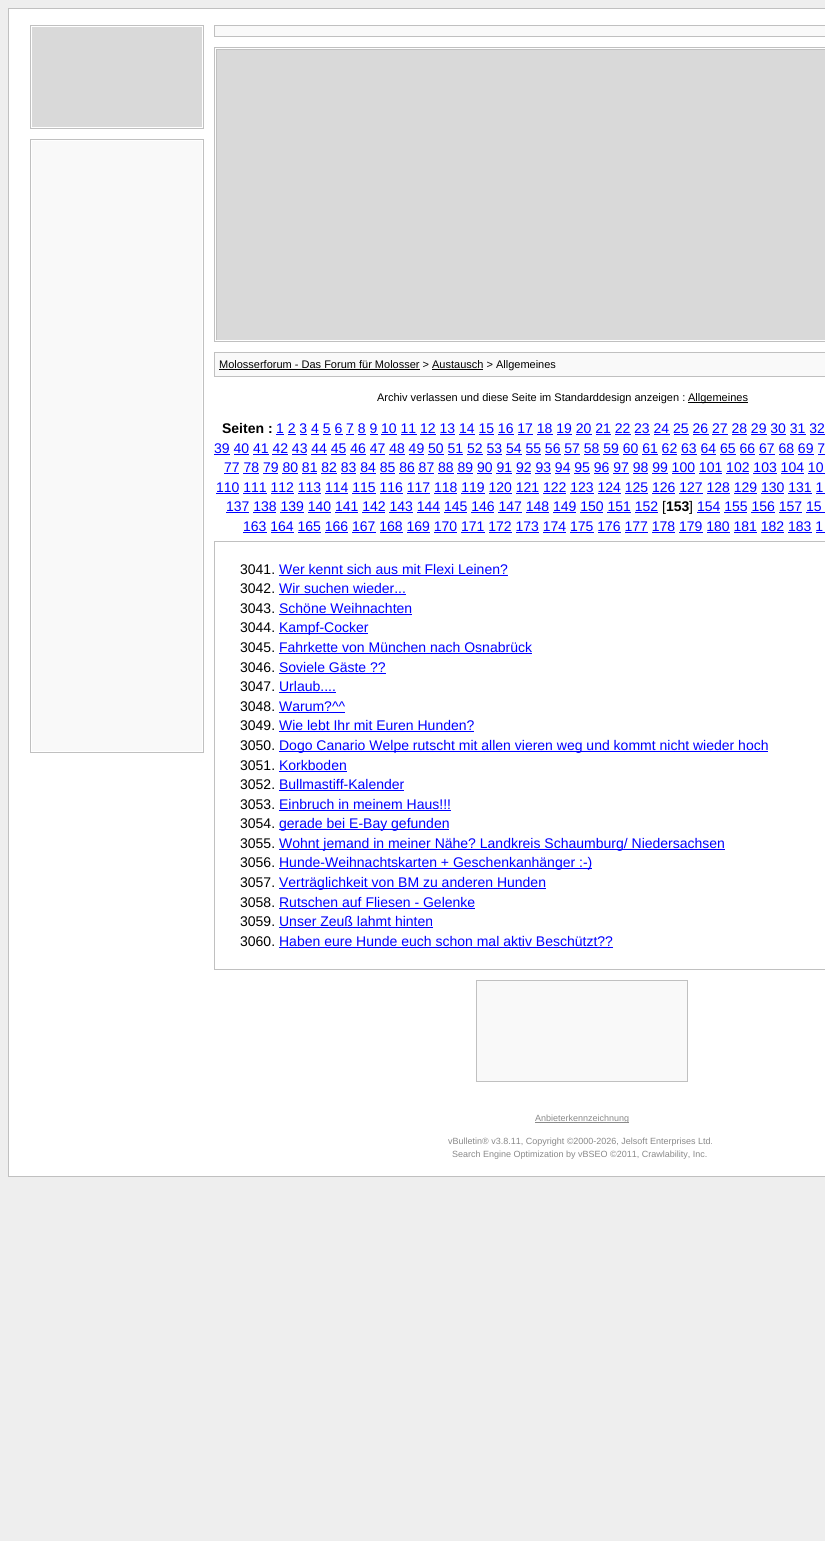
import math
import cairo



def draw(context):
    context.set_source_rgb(238 / 255, 238 / 255, 238 / 255)
    context.paint()
    context.set_source_rgb(1, 1, 1)
    context.rectangle(8.5, 8.5, 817, 1168)
    context.fill_preserve()
    context.set_source_rgb(192 / 255, 192 / 255, 192 / 255)
    context.set_line_width(1)
    context.stroke()
    context.rectangle(30.5, 25.5, 173, 103)
    context.stroke()
    context.set_source_rgb(217 / 255, 217 / 255, 217 / 255)
    context.rectangle(32, 27, 170, 100)
    context.fill()
    context.rectangle(30.5, 139.5, 173, 613)
    context.set_source_rgb(192 / 255, 192 / 255, 192 / 255)
    context.stroke()
    context.set_source_rgb(249 / 255, 249 / 255, 249 / 255)
    context.rectangle(32, 141, 170, 610)
    context.fill()
    context.rectangle(214.5, 25.5, 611, 11)
    context.fill_preserve()
    context.set_source_rgb(192 / 255, 192 / 255, 192 / 255)
    context.stroke()
    context.rectangle(214.5, 47.5, 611, 294)
    context.stroke()
    context.set_source_rgb(217 / 255, 217 / 255, 217 / 255)
    context.rectangle(217, 50, 608, 290)
    context.fill()
    context.set_source_rgb(192 / 255, 192 / 255, 192 / 255)
    context.rectangle(216, 49, 609, 1)
    context.fill()
    context.rectangle(216, 49, 1, 291)
    context.fill()
    context.set_source_rgb(249 / 255, 249 / 255, 249 / 255)
    context.rectangle(214.5, 352.5, 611, 24)
    context.fill_preserve()
    context.set_source_rgb(192 / 255, 192 / 255, 192 / 255)
    context.stroke()
    context.set_source_rgb(0, 0, 0)
    context.rectangle(219, 369, 201, 1)
    context.fill()
    context.rectangle(432, 369, 51, 1)
    context.fill()
    context.rectangle(688, 402, 60, 1)
    context.fill()
    context.set_source_rgb(0, 0, 1)
    context.rectangle(276, 434, 8, 1)
    context.fill()
    context.rectangle(288, 434, 8, 1)
    context.fill()
    context.rectangle(300, 434, 7, 1)
    context.fill()
    context.rectangle(311, 434, 8, 1)
    context.fill()
    context.rectangle(323, 434, 8, 1)
    context.fill()
    context.rectangle(335, 434, 8, 1)
    context.fill()
    context.rectangle(346, 434, 8, 1)
    context.fill()
    context.rectangle(358, 434, 8, 1)
    context.fill()
    context.rectangle(370, 434, 8, 1)
    context.fill()
    context.rectangle(381, 434, 16, 1)
    context.fill()
    context.rectangle(401, 434, 16, 1)
    context.fill()
    context.rectangle(420, 434, 16, 1)
    context.fill()
    context.rectangle(440, 434, 15, 1)
    context.fill()
    context.rectangle(459, 434, 16, 1)
    context.fill()
    context.rectangle(479, 434, 15, 1)
    context.fill()
    context.rectangle(498, 434, 16, 1)
    context.fill()
    context.rectangle(518, 434, 15, 1)
    context.fill()
    context.rectangle(537, 434, 16, 1)
    context.fill()
    context.rectangle(557, 434, 15, 1)
    context.fill()
    context.rectangle(576, 434, 16, 1)
    context.fill()
    context.rectangle(596, 434, 15, 1)
    context.fill()
    context.rectangle(615, 434, 16, 1)
    context.fill()
    context.rectangle(635, 434, 15, 1)
    context.fill()
    context.rectangle(654, 434, 16, 1)
    context.fill()
    context.rectangle(674, 434, 15, 1)
    context.fill()
    context.rectangle(693, 434, 16, 1)
    context.fill()
    context.rectangle(712, 434, 16, 1)
    context.fill()
    context.rectangle(732, 434, 15, 1)
    context.fill()
    context.rectangle(751, 434, 16, 1)
    context.fill()
    context.rectangle(771, 434, 15, 1)
    context.fill()
    context.rectangle(790, 434, 16, 1)
    context.fill()
    context.rectangle(810, 434, 15, 1)
    context.fill()
    context.rectangle(214, 454, 16, 1)
    context.fill()
    context.rectangle(234, 454, 15, 1)
    context.fill()
    context.rectangle(253, 454, 16, 1)
    context.fill()
    context.rectangle(272, 454, 16, 1)
    context.fill()
    context.rectangle(292, 454, 15, 1)
    context.fill()
    context.rectangle(311, 454, 16, 1)
    context.fill()
    context.rectangle(331, 454, 15, 1)
    context.fill()
    context.rectangle(350, 454, 16, 1)
    context.fill()
    context.rectangle(370, 454, 15, 1)
    context.fill()
    context.rectangle(389, 454, 16, 1)
    context.fill()
    context.rectangle(409, 454, 15, 1)
    context.fill()
    context.rectangle(428, 454, 16, 1)
    context.fill()
    context.rectangle(448, 454, 15, 1)
    context.fill()
    context.rectangle(467, 454, 16, 1)
    context.fill()
    context.rectangle(487, 454, 15, 1)
    context.fill()
    context.rectangle(506, 454, 16, 1)
    context.fill()
    context.rectangle(526, 454, 15, 1)
    context.fill()
    context.rectangle(545, 454, 16, 1)
    context.fill()
    context.rectangle(564, 454, 16, 1)
    context.fill()
    context.rectangle(584, 454, 16, 1)
    context.fill()
    context.rectangle(603, 454, 16, 1)
    context.fill()
    context.rectangle(623, 454, 15, 1)
    context.fill()
    context.rectangle(642, 454, 16, 1)
    context.fill()
    context.rectangle(662, 454, 15, 1)
    context.fill()
    context.rectangle(681, 454, 16, 1)
    context.fill()
    context.rectangle(701, 454, 15, 1)
    context.fill()
    context.rectangle(720, 454, 16, 1)
    context.fill()
    context.rectangle(740, 454, 15, 1)
    context.fill()
    context.rectangle(759, 454, 16, 1)
    context.fill()
    context.rectangle(779, 454, 15, 1)
    context.fill()
    context.rectangle(798, 454, 16, 1)
    context.fill()
    context.rectangle(818, 454, 7, 1)
    context.fill()
    context.rectangle(224, 473, 15, 1)
    context.fill()
    context.rectangle(243, 473, 16, 1)
    context.fill()
    context.rectangle(263, 473, 15, 1)
    context.fill()
    context.rectangle(282, 473, 16, 1)
    context.fill()
    context.rectangle(302, 473, 15, 1)
    context.fill()
    context.rectangle(321, 473, 16, 1)
    context.fill()
    context.rectangle(341, 473, 15, 1)
    context.fill()
    context.rectangle(360, 473, 16, 1)
    context.fill()
    context.rectangle(380, 473, 15, 1)
    context.fill()
    context.rectangle(399, 473, 16, 1)
    context.fill()
    context.rectangle(418, 473, 16, 1)
    context.fill()
    context.rectangle(438, 473, 16, 1)
    context.fill()
    context.rectangle(457, 473, 16, 1)
    context.fill()
    context.rectangle(477, 473, 15, 1)
    context.fill()
    context.rectangle(496, 473, 16, 1)
    context.fill()
    context.rectangle(516, 473, 15, 1)
    context.fill()
    context.rectangle(535, 473, 16, 1)
    context.fill()
    context.rectangle(555, 473, 15, 1)
    context.fill()
    context.rectangle(574, 473, 16, 1)
    context.fill()
    context.rectangle(594, 473, 15, 1)
    context.fill()
    context.rectangle(613, 473, 16, 1)
    context.fill()
    context.rectangle(633, 473, 15, 1)
    context.fill()
    context.rectangle(652, 473, 16, 1)
    context.fill()
    context.rectangle(672, 473, 23, 1)
    context.fill()
    context.rectangle(699, 473, 23, 1)
    context.fill()
    context.rectangle(726, 473, 23, 1)
    context.fill()
    context.rectangle(753, 473, 24, 1)
    context.fill()
    context.rectangle(781, 473, 23, 1)
    context.fill()
    context.rectangle(808, 473, 17, 1)
    context.fill()
    context.rectangle(216, 493, 23, 1)
    context.fill()
    context.rectangle(243, 493, 24, 1)
    context.fill()
    context.rectangle(271, 493, 23, 1)
    context.fill()
    context.rectangle(298, 493, 23, 1)
    context.fill()
    context.rectangle(325, 493, 23, 1)
    context.fill()
    context.rectangle(352, 493, 24, 1)
    context.fill()
    context.rectangle(380, 493, 23, 1)
    context.fill()
    context.rectangle(407, 493, 23, 1)
    context.fill()
    context.rectangle(434, 493, 23, 1)
    context.fill()
    context.rectangle(461, 493, 24, 1)
    context.fill()
    context.rectangle(489, 493, 23, 1)
    context.fill()
    context.rectangle(516, 493, 23, 1)
    context.fill()
    context.rectangle(543, 493, 23, 1)
    context.fill()
    context.rectangle(570, 493, 24, 1)
    context.fill()
    context.rectangle(598, 493, 23, 1)
    context.fill()
    context.rectangle(625, 493, 23, 1)
    context.fill()
    context.rectangle(652, 493, 23, 1)
    context.fill()
    context.rectangle(679, 493, 24, 1)
    context.fill()
    context.rectangle(707, 493, 23, 1)
    context.fill()
    context.rectangle(734, 493, 23, 1)
    context.fill()
    context.rectangle(761, 493, 23, 1)
    context.fill()
    context.rectangle(788, 493, 24, 1)
    context.fill()
    context.rectangle(816, 493, 9, 1)
    context.fill()
    context.rectangle(226, 512, 23, 1)
    context.fill()
    context.rectangle(697, 512, 23, 1)
    context.fill()
    context.rectangle(253, 512, 23, 1)
    context.fill()
    context.rectangle(280, 512, 24, 1)
    context.fill()
    context.rectangle(308, 512, 23, 1)
    context.fill()
    context.rectangle(335, 512, 23, 1)
    context.fill()
    context.rectangle(362, 512, 23, 1)
    context.fill()
    context.rectangle(389, 512, 24, 1)
    context.fill()
    context.rectangle(417, 512, 23, 1)
    context.fill()
    context.rectangle(444, 512, 23, 1)
    context.fill()
    context.rectangle(471, 512, 23, 1)
    context.fill()
    context.rectangle(498, 512, 24, 1)
    context.fill()
    context.rectangle(526, 512, 23, 1)
    context.fill()
    context.rectangle(553, 512, 23, 1)
    context.fill()
    context.rectangle(580, 512, 23, 1)
    context.fill()
    context.rectangle(607, 512, 24, 1)
    context.fill()
    context.rectangle(635, 512, 23, 1)
    context.fill()
    context.rectangle(724, 512, 23, 1)
    context.fill()
    context.rectangle(751, 512, 24, 1)
    context.fill()
    context.rectangle(779, 512, 23, 1)
    context.fill()
    context.rectangle(806, 512, 19, 1)
    context.fill()
    context.rectangle(243, 532, 24, 1)
    context.fill()
    context.rectangle(271, 532, 23, 1)
    context.fill()
    context.rectangle(298, 532, 23, 1)
    context.fill()
    context.rectangle(325, 532, 23, 1)
    context.fill()
    context.rectangle(352, 532, 24, 1)
    context.fill()
    context.rectangle(380, 532, 23, 1)
    context.fill()
    context.rectangle(407, 532, 23, 1)
    context.fill()
    context.rectangle(434, 532, 23, 1)
    context.fill()
    context.rectangle(461, 532, 24, 1)
    context.fill()
    context.rectangle(489, 532, 23, 1)
    context.fill()
    context.rectangle(516, 532, 23, 1)
    context.fill()
    context.rectangle(543, 532, 23, 1)
    context.fill()
    context.rectangle(570, 532, 24, 1)
    context.fill()
    context.rectangle(598, 532, 23, 1)
    context.fill()
    context.rectangle(625, 532, 23, 1)
    context.fill()
    context.rectangle(652, 532, 23, 1)
    context.fill()
    context.rectangle(679, 532, 24, 1)
    context.fill()
    context.rectangle(707, 532, 23, 1)
    context.fill()
    context.rectangle(734, 532, 23, 1)
    context.fill()
    context.rectangle(761, 532, 23, 1)
    context.fill()
    context.rectangle(788, 532, 24, 1)
    context.fill()
    context.rectangle(816, 532, 9, 1)
    context.fill()
    context.rectangle(214.5, 541.5, 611, 428)
    context.set_source_rgb(192 / 255, 192 / 255, 192 / 255)
    context.stroke()
    context.set_source_rgb(0, 0, 1)
    context.rectangle(279, 575, 229, 1)
    context.fill()
    context.rectangle(279, 594, 127, 1)
    context.fill()
    context.rectangle(279, 614, 133, 1)
    context.fill()
    context.rectangle(279, 633, 89, 1)
    context.fill()
    context.rectangle(279, 653, 253, 1)
    context.fill()
    context.rectangle(279, 673, 107, 1)
    context.fill()
    context.rectangle(279, 692, 57, 1)
    context.fill()
    context.rectangle(279, 712, 66, 1)
    context.fill()
    context.rectangle(279, 731, 195, 1)
    context.fill()
    context.rectangle(279, 751, 489, 1)
    context.fill()
    context.rectangle(279, 771, 68, 1)
    context.fill()
    context.rectangle(279, 790, 125, 1)
    context.fill()
    context.rectangle(279, 810, 172, 1)
    context.fill()
    context.rectangle(279, 829, 170, 1)
    context.fill()
    context.rectangle(279, 849, 446, 1)
    context.fill()
    context.rectangle(279, 868, 313, 1)
    context.fill()
    context.rectangle(279, 888, 267, 1)
    context.fill()
    context.rectangle(279, 908, 196, 1)
    context.fill()
    context.rectangle(279, 927, 154, 1)
    context.fill()
    context.rectangle(279, 947, 334, 1)
    context.fill()
    context.set_source_rgb(249 / 255, 249 / 255, 249 / 255)
    context.rectangle(476.5, 980.5, 211, 101)
    context.fill_preserve()
    context.set_source_rgb(192 / 255, 192 / 255, 192 / 255)
    context.stroke()
    context.set_source_rgb(137 / 255, 137 / 255, 137 / 255)
    context.rectangle(535, 1122, 94, 1)
    context.fill()
    context.select_font_face("Liberation Sans")
    context.set_font_size(11)
    context.set_source_rgb(0, 0, 0)
    context.move_to(219, 368)
    context.show_text("Molosserforum - Das Forum für Molosser > Austausch > Allgemeines")
    context.move_to(377, 401)
    context.show_text("Archiv verlassen und diese Seite im Standarddesign anzeigen :")
    context.move_to(688, 401)
    context.show_text("Allgemeines")
    context.select_font_face("Liberation Sans", cairo.FontSlant.NORMAL, cairo.FontWeight.BOLD)
    context.set_font_size(14)
    context.move_to(222, 433)
    context.show_text("Seiten :")
    context.select_font_face("Liberation Sans")
    context.set_source_rgb(0, 0, 1)
    context.move_to(276, 433)
    context.show_text("1 2 3 4 5 6 7 8 9 10 11 12 13 14 15 16 17 18 19 20 21 22 23 24 25 26 27 28 29 30 31 32")
    context.move_to(214, 453)
    context.show_text("39 40 41 42 43 44 45 46 47 48 49 50 51 52 53 54 55 56 57 58 59 60 61 62 63 64 65 66 67 68 69 7")
    context.move_to(224, 472)
    context.show_text("77 78 79 80 81 82 83 84 85 86 87 88 89 90 91 92 93 94 95 96 97 98 99 100 101 102 103 104 10")
    context.move_to(216, 492)
    context.show_text("110 111 112 113 114 115 116 117 118 119 120 121 122 123 124 125 126 127 128 129 130 131 1")
    context.move_to(226, 511)
    context.show_text("137 138 139 140 141 142 143 144 145 146 147 148 149 150 151 152")
    context.set_source_rgb(0, 0, 0)
    context.move_to(662, 511)
    context.show_text("[")
    context.select_font_face("Liberation Sans", cairo.FontSlant.NORMAL, cairo.FontWeight.BOLD)
    context.move_to(666, 511)
    context.show_text("153")
    context.select_font_face("Liberation Sans")
    context.move_to(689, 511)
    context.show_text("]")
    context.set_source_rgb(0, 0, 1)
    context.move_to(697, 511)
    context.show_text("154 155 156 157 15")
    context.move_to(243, 531)
    context.show_text("163 164 165 166 167 168 169 170 171 172 173 174 175 176 177 178 179 180 181 182 183 1")
    context.set_source_rgb(0, 0, 0)
    context.move_to(240, 574)
    context.show_text("3041.")
    context.set_source_rgb(0, 0, 1)
    context.move_to(279, 574)
    context.show_text("Wer kennt sich aus mit Flexi Leinen?")
    context.set_source_rgb(0, 0, 0)
    context.move_to(240, 593)
    context.show_text("3042.")
    context.set_source_rgb(0, 0, 1)
    context.move_to(279, 593)
    context.show_text("Wir suchen wieder...")
    context.set_source_rgb(0, 0, 0)
    context.move_to(240, 613)
    context.show_text("3043.")
    context.set_source_rgb(0, 0, 1)
    context.move_to(279, 613)
    context.show_text("Schöne Weihnachten")
    context.set_source_rgb(0, 0, 0)
    context.move_to(240, 632)
    context.show_text("3044.")
    context.set_source_rgb(0, 0, 1)
    context.move_to(279, 632)
    context.show_text("Kampf-Cocker")
    context.set_source_rgb(0, 0, 0)
    context.move_to(240, 652)
    context.show_text("3045.")
    context.set_source_rgb(0, 0, 1)
    context.move_to(279, 652)
    context.show_text("Fahrkette von München nach Osnabrück")
    context.set_source_rgb(0, 0, 0)
    context.move_to(240, 672)
    context.show_text("3046.")
    context.set_source_rgb(0, 0, 1)
    context.move_to(279, 672)
    context.show_text("Soviele Gäste ??")
    context.set_source_rgb(0, 0, 0)
    context.move_to(240, 691)
    context.show_text("3047.")
    context.set_source_rgb(0, 0, 1)
    context.move_to(279, 691)
    context.show_text("Urlaub....")
    context.set_source_rgb(0, 0, 0)
    context.move_to(240, 711)
    context.show_text("3048.")
    context.set_source_rgb(0, 0, 1)
    context.move_to(279, 711)
    context.show_text("Warum?^^")
    context.set_source_rgb(0, 0, 0)
    context.move_to(240, 730)
    context.show_text("3049.")
    context.set_source_rgb(0, 0, 1)
    context.move_to(279, 730)
    context.show_text("Wie lebt Ihr mit Euren Hunden?")
    context.set_source_rgb(0, 0, 0)
    context.move_to(240, 750)
    context.show_text("3050.")
    context.set_source_rgb(0, 0, 1)
    context.move_to(279, 750)
    context.show_text("Dogo Canario Welpe rutscht mit allen vieren weg und kommt nicht wieder hoch")
    context.set_source_rgb(0, 0, 0)
    context.move_to(240, 770)
    context.show_text("3051.")
    context.set_source_rgb(0, 0, 1)
    context.move_to(279, 770)
    context.show_text("Korkboden")
    context.set_source_rgb(0, 0, 0)
    context.move_to(240, 789)
    context.show_text("3052.")
    context.set_source_rgb(0, 0, 1)
    context.move_to(279, 789)
    context.show_text("Bullmastiff-Kalender")
    context.set_source_rgb(0, 0, 0)
    context.move_to(240, 809)
    context.show_text("3053.")
    context.set_source_rgb(0, 0, 1)
    context.move_to(279, 809)
    context.show_text("Einbruch in meinem Haus!!!")
    context.set_source_rgb(0, 0, 0)
    context.move_to(240, 828)
    context.show_text("3054.")
    context.set_source_rgb(0, 0, 1)
    context.move_to(279, 828)
    context.show_text("gerade bei E-Bay gefunden")
    context.set_source_rgb(0, 0, 0)
    context.move_to(240, 848)
    context.show_text("3055.")
    context.set_source_rgb(0, 0, 1)
    context.move_to(279, 848)
    context.show_text("Wohnt jemand in meiner Nähe? Landkreis Schaumburg/ Niedersachsen")
    context.set_source_rgb(0, 0, 0)
    context.move_to(240, 867)
    context.show_text("3056.")
    context.set_source_rgb(0, 0, 1)
    context.move_to(279, 867)
    context.show_text("Hunde-Weihnachtskarten + Geschenkanhänger :-)")
    context.set_source_rgb(0, 0, 0)
    context.move_to(240, 887)
    context.show_text("3057.")
    context.set_source_rgb(0, 0, 1)
    context.move_to(279, 887)
    context.show_text("Verträglichkeit von BM zu anderen Hunden")
    context.set_source_rgb(0, 0, 0)
    context.move_to(240, 907)
    context.show_text("3058.")
    context.set_source_rgb(0, 0, 1)
    context.move_to(279, 907)
    context.show_text("Rutschen auf Fliesen - Gelenke")
    context.set_source_rgb(0, 0, 0)
    context.move_to(240, 926)
    context.show_text("3059.")
    context.set_source_rgb(0, 0, 1)
    context.move_to(279, 926)
    context.show_text("Unser Zeuß lahmt hinten")
    context.set_source_rgb(0, 0, 0)
    context.move_to(240, 946)
    context.show_text("3060.")
    context.set_source_rgb(0, 0, 1)
    context.move_to(279, 946)
    context.show_text("Haben eure Hunde euch schon mal aktiv Beschützt??")
    context.set_font_size(9)
    context.set_source_rgb(137 / 255, 137 / 255, 137 / 255)
    context.move_to(535, 1121)
    context.show_text("Anbieterkennzeichnung")
    context.move_to(448, 1144)
    context.show_text("vBulletin® v3.8.11, Copyright ©2000-2026, Jelsoft Enterprises Ltd.")
    context.move_to(452, 1157)
    context.show_text("Search Engine Optimization by vBSEO ©2011, Crawlability, Inc.")


surface = cairo.ImageSurface(cairo.Format.RGB24, 825, 1541)
context = cairo.Context(surface)
options = cairo.FontOptions()
options.set_hint_metrics(cairo.HintMetrics.OFF)
options.set_hint_style(cairo.HintStyle.NONE)
context.set_font_options(options)
context.set_miter_limit(4)
draw(context)
surface.write_to_png("out.png")
